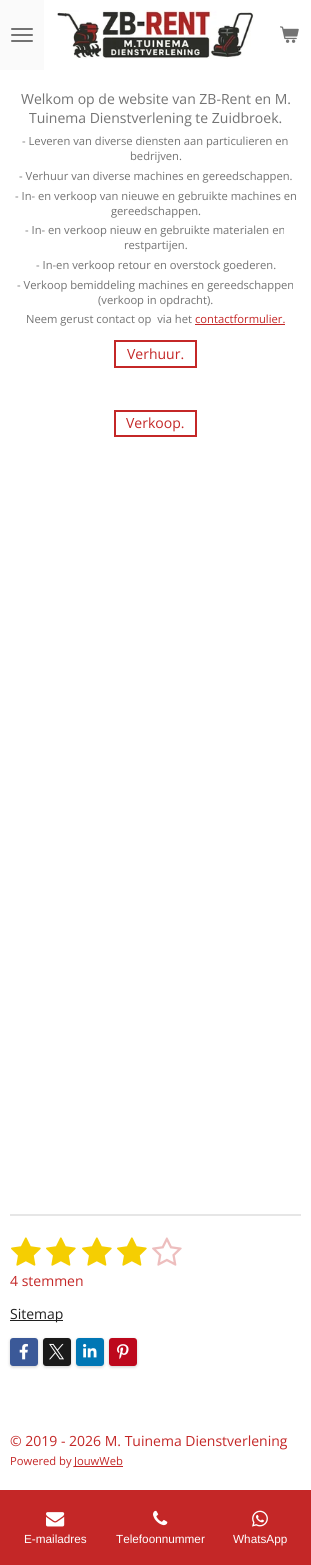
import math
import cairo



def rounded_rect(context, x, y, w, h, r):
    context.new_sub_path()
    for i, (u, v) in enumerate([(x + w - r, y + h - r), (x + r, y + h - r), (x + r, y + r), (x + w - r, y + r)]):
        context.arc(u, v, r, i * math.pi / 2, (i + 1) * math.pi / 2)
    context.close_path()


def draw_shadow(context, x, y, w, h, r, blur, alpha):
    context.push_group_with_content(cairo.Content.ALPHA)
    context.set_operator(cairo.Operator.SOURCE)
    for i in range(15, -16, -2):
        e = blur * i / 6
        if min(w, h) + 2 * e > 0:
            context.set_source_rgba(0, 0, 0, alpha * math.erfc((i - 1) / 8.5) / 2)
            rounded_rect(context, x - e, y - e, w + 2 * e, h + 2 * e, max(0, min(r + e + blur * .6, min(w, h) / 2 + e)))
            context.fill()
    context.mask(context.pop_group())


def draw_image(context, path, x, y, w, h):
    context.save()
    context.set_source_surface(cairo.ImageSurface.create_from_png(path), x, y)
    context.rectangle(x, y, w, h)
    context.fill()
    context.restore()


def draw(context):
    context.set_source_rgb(1, 1, 1)
    context.paint()
    context.set_source_rgb(250 / 255, 250 / 255, 250 / 255)
    context.rectangle(0, 0, 44, 70)
    context.fill()
    context.set_source_rgb(115 / 255, 115 / 255, 115 / 255)
    rounded_rect(context, 11, 34, 22, 2, 1)
    context.fill()
    rounded_rect(context, 11, 28, 22, 2, 1)
    context.fill()
    rounded_rect(context, 11, 40, 22, 2, 1)
    context.fill()
    draw_image(context, "images/1.png", 57, 10, 197, 49)
    draw_image(context, "images/2.png", 280, 26, 19, 17)
    context.set_source_rgb(196 / 255, 39 / 255, 39 / 255)
    context.rectangle(195, 324, 90, 1)
    context.fill()
    context.rectangle(115, 341, 81, 26)
    context.stroke()
    context.rectangle(115, 411, 81, 25)
    context.stroke()
    context.set_source_rgb(230 / 255, 230 / 255, 230 / 255)
    context.rectangle(10, 1214, 291, 2)
    context.fill()
    draw_image(context, "images/3.png", 11, 1237, 30, 29)
    draw_image(context, "images/3.png", 46, 1237, 30, 29)
    draw_image(context, "images/3.png", 82, 1237, 30, 29)
    draw_image(context, "images/3.png", 117, 1237, 30, 29)
    draw_image(context, "images/4.png", 152, 1237, 30, 29)
    context.set_source_rgb(32 / 255, 32 / 255, 32 / 255)
    context.rectangle(10, 1320, 53, 1)
    context.fill()
    context.set_source_rgb(0, 0, 0)
    draw_shadow(context, 10, 1339, 28, 28, 3, 1.5, 0.2)
    context.set_source_rgb(59 / 255, 89 / 255, 152 / 255)
    rounded_rect(context, 10, 1338, 28, 28, 3)
    context.fill()
    draw_image(context, "images/5.png", 19, 1343, 9, 17)
    context.set_source_rgb(0, 0, 0)
    draw_shadow(context, 43, 1339, 28, 28, 3, 1.5, 0.2)
    context.set_source_rgb(26 / 255, 26 / 255, 26 / 255)
    rounded_rect(context, 43, 1338, 28, 28, 3)
    context.fill()
    draw_image(context, "images/6.png", 49, 1343, 15, 17)
    context.set_source_rgb(0, 0, 0)
    draw_shadow(context, 76, 1339, 28, 28, 3, 1.5, 0.2)
    context.set_source_rgb(0, 119 / 255, 181 / 255)
    rounded_rect(context, 76, 1338, 28, 28, 3)
    context.fill()
    draw_image(context, "images/7.png", 83, 1343, 14, 15)
    context.set_source_rgb(0, 0, 0)
    draw_shadow(context, 109, 1339, 28, 28, 3, 1.5, 0.2)
    context.set_source_rgb(189 / 255, 8 / 255, 28 / 255)
    rounded_rect(context, 109, 1338, 28, 28, 3)
    context.fill()
    draw_image(context, "images/8.png", 117, 1344, 12, 16)
    context.set_source_rgb(196 / 255, 39 / 255, 39 / 255)
    context.rectangle(74, 1466, 49, 1)
    context.fill()
    context.rectangle(0, 1490, 311, 75)
    context.fill()
    draw_image(context, "images/9.png", 46, 1512, 19, 15)
    draw_image(context, "images/10.png", 153, 1510, 15, 16)
    draw_image(context, "images/11.png", 252, 1510, 16, 17)
    context.select_font_face("Open Sans")
    context.set_font_size(14)
    context.set_source_rgb(115 / 255, 115 / 255, 115 / 255)
    context.move_to(21, 104)
    context.show_text("Welkom op de website van ZB-Rent en M.")
    context.move_to(29, 123)
    context.show_text("Tuinema Dienstverlening te Zuidbroek.")
    context.set_font_size(11.2)
    context.move_to(22, 145)
    context.show_text("- Leveren van diverse diensten aan particulieren en")
    context.move_to(130, 160)
    context.show_text("bedrijven.")
    context.move_to(19, 180)
    context.show_text("- Verhuur van diverse machines en gereedschappen.")
    context.move_to(15, 200)
    context.show_text("- In- en verkoop van nieuwe en gebruikte machines en")
    context.move_to(111, 215)
    context.show_text("gereedschappen.")
    context.move_to(25, 234)
    context.show_text("- In- en verkoop nieuw en gebruikte materialen en")
    context.move_to(124, 249)
    context.show_text("restpartijen.")
    context.move_to(36, 269)
    context.show_text("- In-en verkoop retour en overstock goederen.")
    context.move_to(17, 289)
    context.show_text("- Verkoop bemiddeling machines en gereedschappen")
    context.move_to(98, 304)
    context.show_text("(verkoop in opdracht).")
    context.move_to(26, 323)
    context.show_text("Neem gerust contact op  via het")
    context.set_source_rgb(196 / 255, 39 / 255, 39 / 255)
    context.move_to(195, 323)
    context.show_text("contactformulier.")
    context.set_font_size(14)
    context.move_to(127, 359)
    context.show_text("Verhuur.")
    context.move_to(126, 428)
    context.show_text("Verkoop.")
    context.move_to(10, 1286)
    context.show_text("4 stemmen")
    context.set_source_rgb(32 / 255, 32 / 255, 32 / 255)
    context.move_to(10, 1319)
    context.show_text("Sitemap")
    context.set_source_rgb(196 / 255, 39 / 255, 39 / 255)
    context.move_to(10, 1446)
    context.show_text("© 2019 - 2026 M. Tuinema Dienstverlening")
    context.set_font_size(11.2)
    context.move_to(10, 1465)
    context.show_text("Powered by")
    context.move_to(74, 1465)
    context.show_text("JouwWeb")
    context.select_font_face("Liberation Sans")
    context.set_font_size(11.75)
    context.set_source_rgb(1, 1, 1)
    context.move_to(24, 1543)
    context.show_text("E-mailadres")
    context.move_to(116, 1543)
    context.show_text("Telefoonnummer")
    context.move_to(233, 1543)
    context.show_text("WhatsApp")


surface = cairo.ImageSurface(cairo.Format.RGB24, 311, 1565)
context = cairo.Context(surface)
options = cairo.FontOptions()
options.set_hint_metrics(cairo.HintMetrics.OFF)
options.set_hint_style(cairo.HintStyle.NONE)
context.set_font_options(options)
context.set_miter_limit(4)
draw(context)
surface.write_to_png("out.png")
